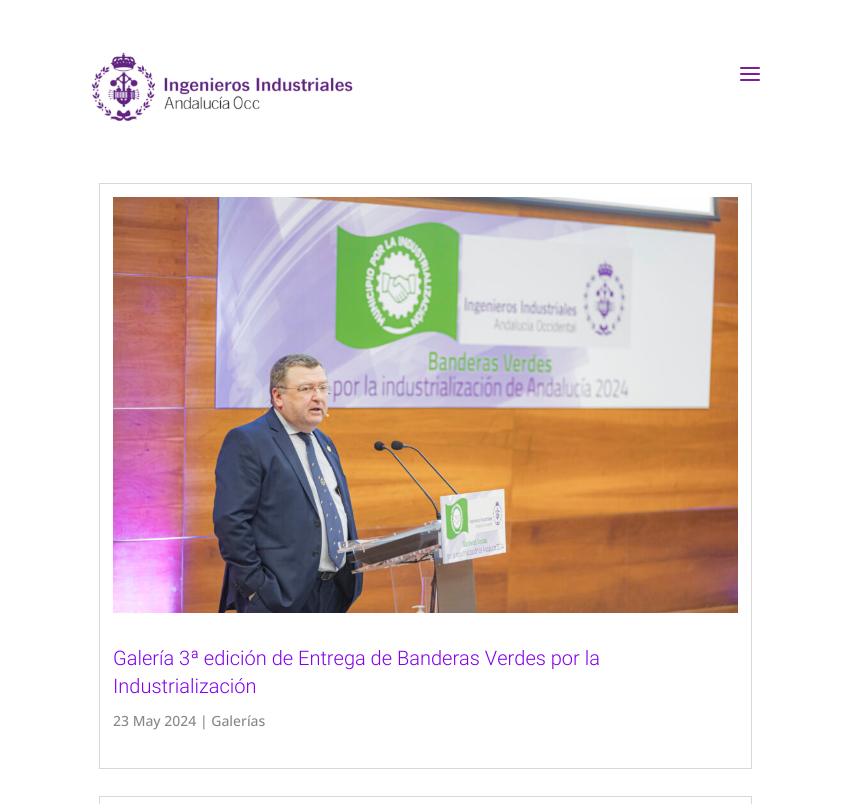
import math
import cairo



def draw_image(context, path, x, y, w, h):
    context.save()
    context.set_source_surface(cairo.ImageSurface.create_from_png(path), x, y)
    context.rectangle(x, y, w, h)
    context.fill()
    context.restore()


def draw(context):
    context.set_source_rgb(1, 1, 1)
    context.paint()
    draw_image(context, "images/1.png", 91, 52, 262, 70)
    draw_image(context, "images/2.png", 740, 67, 20, 14)
    context.rectangle(99.5, 183.5, 652, 585)
    context.set_source_rgb(216 / 255, 216 / 255, 216 / 255)
    context.set_line_width(1)
    context.stroke()
    draw_image(context, "images/3.png", 113, 197, 625, 416)
    context.rectangle(99.5, 796.5, 652, 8)
    context.stroke()
    context.select_font_face("Roboto Light")
    context.set_font_size(20)
    context.set_source_rgb(131 / 255, 0, 233 / 255)
    context.move_to(113, 665)
    context.show_text("Galería 3ª edición de Entrega de Banderas Verdes por la")
    context.move_to(113, 693)
    context.show_text("Industrialización")
    context.select_font_face("Open Sans Medium")
    context.set_font_size(14)
    context.set_source_rgb(135 / 255, 135 / 255, 135 / 255)
    context.move_to(113, 726)
    context.show_text("23 May 2024 | Galerías")


surface = cairo.ImageSurface(cairo.Format.RGB24, 851, 804)
context = cairo.Context(surface)
options = cairo.FontOptions()
options.set_hint_metrics(cairo.HintMetrics.OFF)
options.set_hint_style(cairo.HintStyle.NONE)
context.set_font_options(options)
context.set_miter_limit(4)
draw(context)
surface.write_to_png("out.png")
